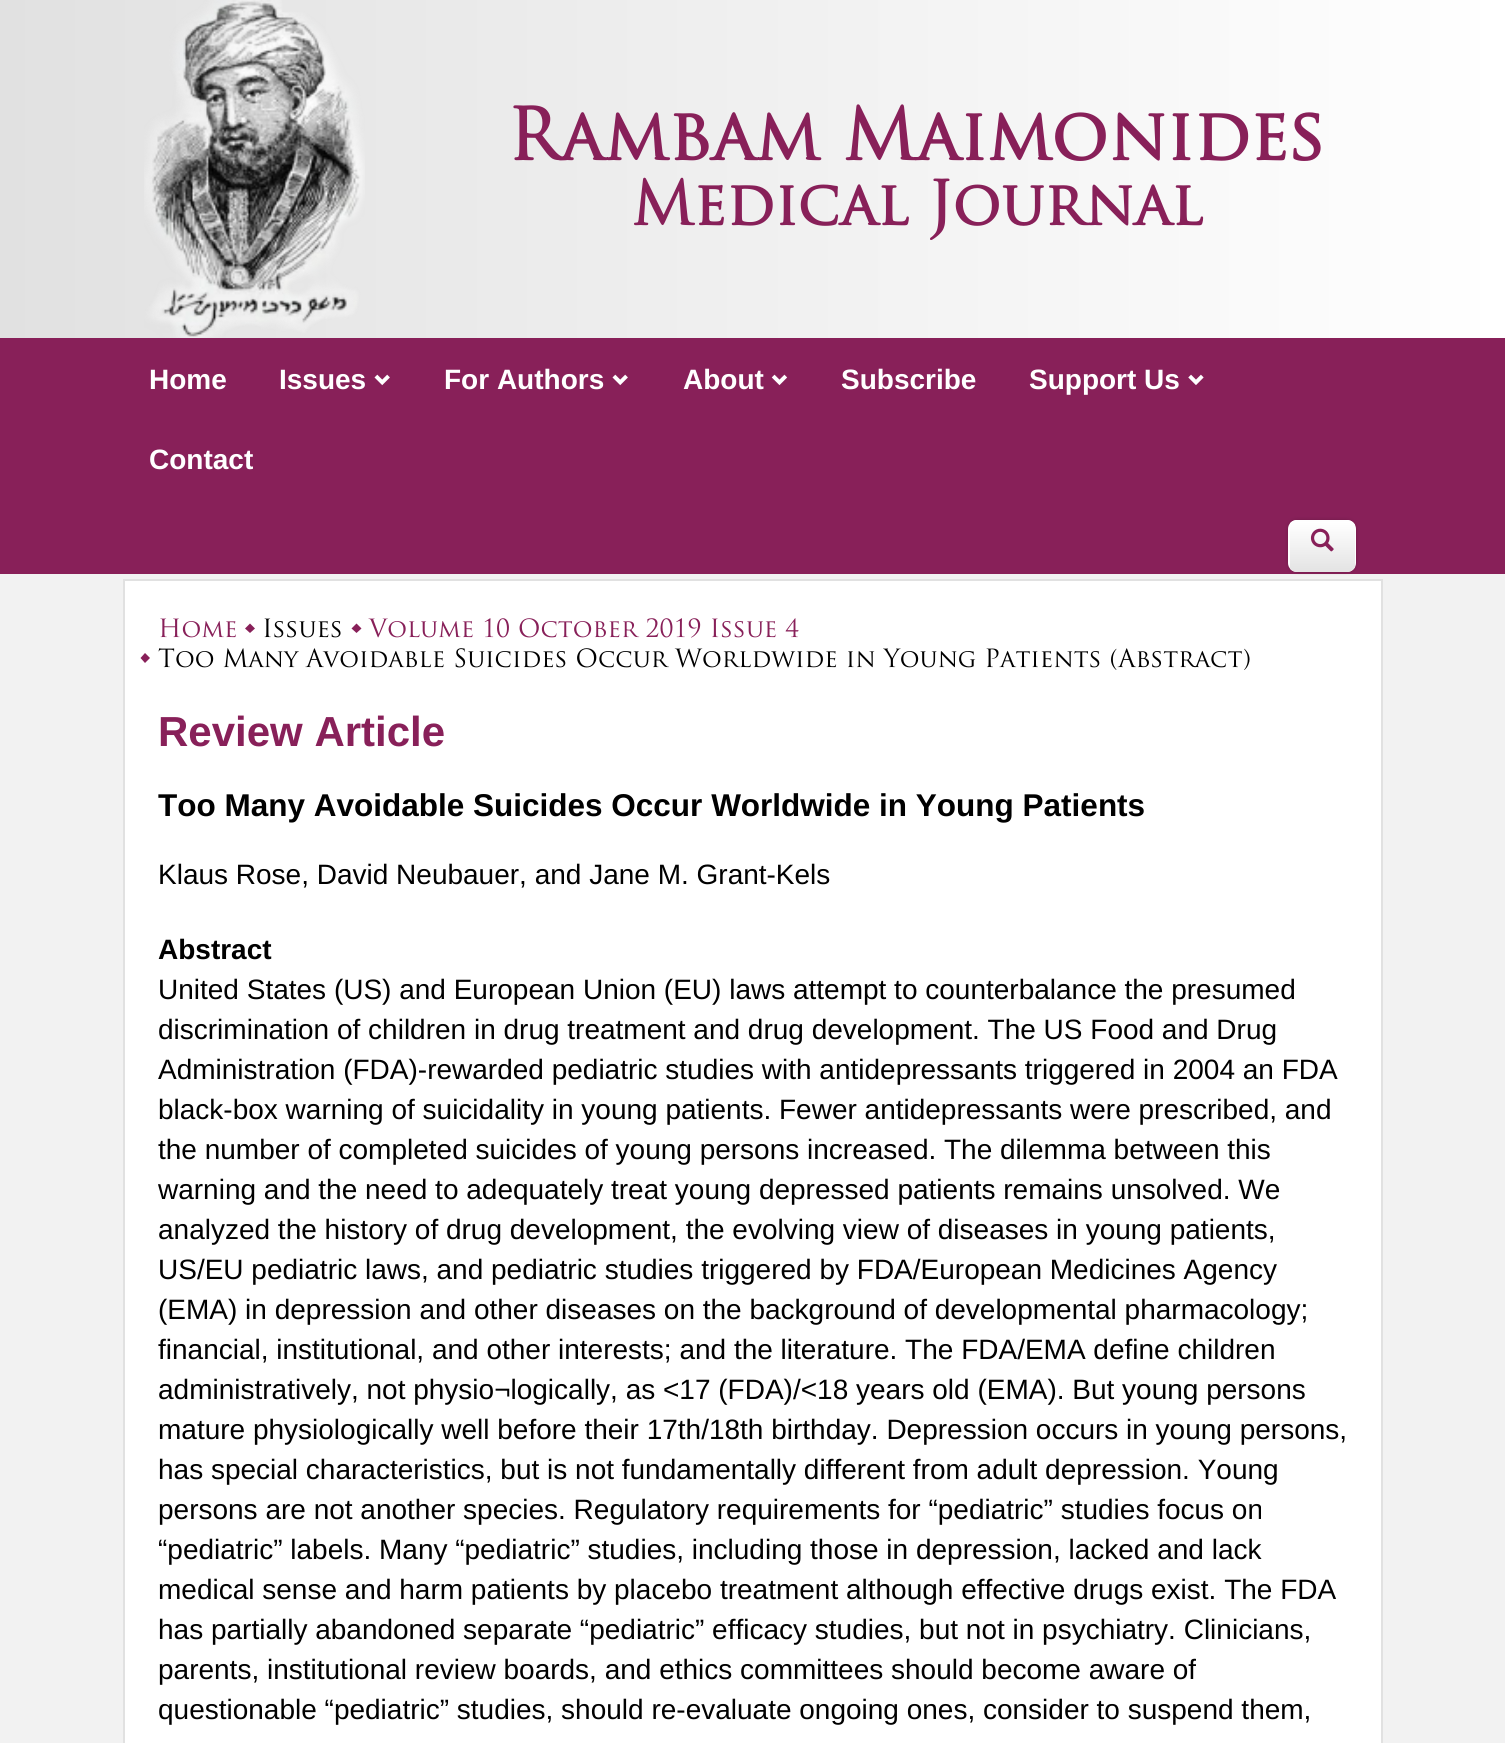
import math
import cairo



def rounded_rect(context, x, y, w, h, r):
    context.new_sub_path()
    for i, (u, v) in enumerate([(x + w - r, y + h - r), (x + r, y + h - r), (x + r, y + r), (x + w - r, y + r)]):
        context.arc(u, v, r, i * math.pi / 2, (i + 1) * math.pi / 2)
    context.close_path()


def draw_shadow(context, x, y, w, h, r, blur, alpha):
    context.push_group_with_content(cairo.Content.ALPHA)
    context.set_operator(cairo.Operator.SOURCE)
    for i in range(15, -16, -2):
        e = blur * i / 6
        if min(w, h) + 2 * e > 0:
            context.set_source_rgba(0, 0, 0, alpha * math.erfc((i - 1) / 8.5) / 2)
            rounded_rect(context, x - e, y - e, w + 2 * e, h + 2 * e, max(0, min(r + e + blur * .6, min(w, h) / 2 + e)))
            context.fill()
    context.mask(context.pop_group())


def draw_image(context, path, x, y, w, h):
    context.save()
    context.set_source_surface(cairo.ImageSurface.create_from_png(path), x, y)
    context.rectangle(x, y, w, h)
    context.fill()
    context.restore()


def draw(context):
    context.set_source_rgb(242 / 255, 242 / 255, 242 / 255)
    context.paint()
    gradient = cairo.LinearGradient(0, 287, 1505, 287)
    gradient.add_color_stop_rgba(0, 225 / 255, 225 / 255, 225 / 255, 1)
    gradient.add_color_stop_rgba(1, 1, 1, 1, 1)
    context.set_source(gradient)
    context.rectangle(0, 0, 1505, 338)
    context.fill()
    draw_image(context, "images/1.png", 144, 0, 221, 338)
    context.set_source_rgb(136 / 255, 32 / 255, 89 / 255)
    context.rectangle(0, 338, 1505, 236)
    context.fill()
    draw_image(context, "images/2.png", 374, 374, 16, 12)
    draw_image(context, "images/2.png", 612, 374, 16, 12)
    draw_image(context, "images/3.png", 771, 374, 17, 12)
    draw_image(context, "images/4.png", 1188, 374, 16, 11)
    context.set_source_rgb(0, 0, 0)
    draw_shadow(context, 1288, 520, 68, 52, 9, 2, 0.2)
    context.set_source_rgb(1, 1, 1)
    rounded_rect(context, 1288, 520, 68, 52, 9)
    context.fill()
    context.save()
    rounded_rect(context, 1288, 520, 68, 52, 9)
    context.clip()
    gradient = cairo.LinearGradient(1322, 469, 1322, 576)
    gradient.add_color_stop_rgba(0, 225 / 255, 225 / 255, 225 / 255, 1)
    gradient.add_color_stop_rgba(0.5, 1, 1, 1, 1)
    gradient.add_color_stop_rgba(1, 225 / 255, 225 / 255, 225 / 255, 1)
    context.set_source(gradient)
    context.rectangle(1290, 520, 65, 52)
    context.fill()
    context.restore()
    draw_image(context, "images/5.png", 1310, 528, 24, 24)
    context.rectangle(124, 580, 1258, 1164)
    context.fill_preserve()
    context.set_source_rgb(225 / 255, 225 / 255, 225 / 255)
    context.stroke()
    context.set_source_rgb(136 / 255, 32 / 255, 89 / 255)
    context.new_path()
    context.move_to(250, 623.5)
    context.line_to(255, 628.5)
    context.line_to(250, 633)
    context.line_to(245, 628.5)
    context.close_path()
    context.fill()
    context.new_path()
    context.move_to(356.5, 623.5)
    context.line_to(361.5, 628.5)
    context.line_to(356.5, 633)
    context.line_to(351.5, 628.5)
    context.close_path()
    context.fill()
    context.new_path()
    context.move_to(145, 653)
    context.line_to(150, 658)
    context.line_to(145, 663)
    context.line_to(140.5, 658)
    context.close_path()
    context.fill()
    context.select_font_face("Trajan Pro", cairo.FontSlant.NORMAL, cairo.FontWeight.BOLD)
    context.set_font_size(70)
    context.move_to(507, 160)
    context.show_text("Rambam Maimonides")
    context.set_font_size(59.5)
    context.move_to(631, 225)
    context.show_text("Medical Journal")
    context.select_font_face("Liberation Sans", cairo.FontSlant.NORMAL, cairo.FontWeight.BOLD)
    context.set_font_size(28)
    context.set_source_rgb(1, 1, 1)
    context.move_to(149, 389)
    context.show_text("Home")
    context.move_to(279, 389)
    context.show_text("Issues")
    context.move_to(444, 389)
    context.show_text("For Authors")
    context.move_to(683, 389)
    context.show_text("About")
    context.move_to(841, 389)
    context.show_text("Subscribe")
    context.move_to(1029, 389)
    context.show_text("Support Us")
    context.move_to(149, 469)
    context.show_text("Contact")
    context.select_font_face("Trajan Pro")
    context.set_font_size(24.5)
    context.set_source_rgb(136 / 255, 32 / 255, 89 / 255)
    context.move_to(158, 637)
    context.show_text("Home")
    context.set_source_rgb(0, 0, 0)
    context.move_to(262, 637)
    context.show_text("Issues")
    context.set_source_rgb(136 / 255, 32 / 255, 89 / 255)
    context.move_to(369, 637)
    context.show_text("Volume 10 October 2019 Issue 4")
    context.set_source_rgb(0, 0, 0)
    context.move_to(158, 667)
    context.show_text("Too Many Avoidable Suicides Occur Worldwide in Young Patients (Abstract)")
    context.select_font_face("Liberation Sans", cairo.FontSlant.NORMAL, cairo.FontWeight.BOLD)
    context.set_font_size(42)
    context.set_source_rgb(136 / 255, 32 / 255, 89 / 255)
    context.move_to(158, 746)
    context.show_text("Review Article")
    context.set_font_size(31.5)
    context.set_source_rgb(0, 0, 0)
    context.move_to(158, 816)
    context.show_text("Too Many Avoidable Suicides Occur Worldwide in Young Patients")
    context.select_font_face("Liberation Sans")
    context.set_font_size(28)
    context.move_to(158, 884)
    context.show_text("Klaus Rose, David Neubauer, and Jane M. Grant-Kels")
    context.select_font_face("Liberation Sans", cairo.FontSlant.NORMAL, cairo.FontWeight.BOLD)
    context.move_to(158, 959)
    context.show_text("Abstract")
    context.select_font_face("Liberation Sans")
    context.move_to(158, 999)
    context.show_text("United States (US) and European Union (EU) laws attempt to counterbalance the presumed")
    context.move_to(158, 1039)
    context.show_text("discrimination of children in drug treatment and drug development. The US Food and Drug")
    context.move_to(158, 1079)
    context.show_text("Administration (FDA)-rewarded pediatric studies with antidepressants triggered in 2004 an FDA")
    context.move_to(158, 1119)
    context.show_text("black-box warning of suicidality in young patients. Fewer antidepressants were prescribed, and")
    context.move_to(158, 1159)
    context.show_text("the number of completed suicides of young persons increased. The dilemma between this")
    context.move_to(158, 1199)
    context.show_text("warning and the need to adequately treat young depressed patients remains unsolved. We")
    context.move_to(158, 1239)
    context.show_text("analyzed the history of drug development, the evolving view of diseases in young patients,")
    context.move_to(158, 1279)
    context.show_text("US/EU pediatric laws, and pediatric studies triggered by FDA/European Medicines Agency")
    context.move_to(158, 1319)
    context.show_text("(EMA) in depression and other diseases on the background of developmental pharmacology;")
    context.move_to(158, 1359)
    context.show_text("financial, institutional, and other interests; and the literature. The FDA/EMA define children")
    context.move_to(158, 1399)
    context.show_text("administratively, not physio¬logically, as <17 (FDA)/<18 years old (EMA). But young persons")
    context.move_to(158, 1439)
    context.show_text("mature physiologically well before their 17th/18th birthday. Depression occurs in young persons,")
    context.move_to(158, 1479)
    context.show_text("has special characteristics, but is not fundamentally different from adult depression. Young")
    context.move_to(158, 1519)
    context.show_text("persons are not another species. Regulatory requirements for “pediatric” studies focus on")
    context.move_to(158, 1559)
    context.show_text("“pediatric” labels. Many “pediatric” studies, including those in depression, lacked and lack")
    context.move_to(158, 1599)
    context.show_text("medical sense and harm patients by placebo treatment although effective drugs exist. The FDA")
    context.move_to(158, 1639)
    context.show_text("has partially abandoned separate “pediatric” efficacy studies, but not in psychiatry. Clinicians,")
    context.move_to(158, 1679)
    context.show_text("parents, institutional review boards, and ethics committees should become aware of")
    context.move_to(158, 1719)
    context.show_text("questionable “pediatric” studies, should re-evaluate ongoing ones, consider to suspend them,")


surface = cairo.ImageSurface(cairo.Format.RGB24, 1505, 1743)
context = cairo.Context(surface)
options = cairo.FontOptions()
options.set_hint_metrics(cairo.HintMetrics.OFF)
options.set_hint_style(cairo.HintStyle.NONE)
context.set_font_options(options)
context.set_miter_limit(4)
draw(context)
surface.write_to_png("out.png")
